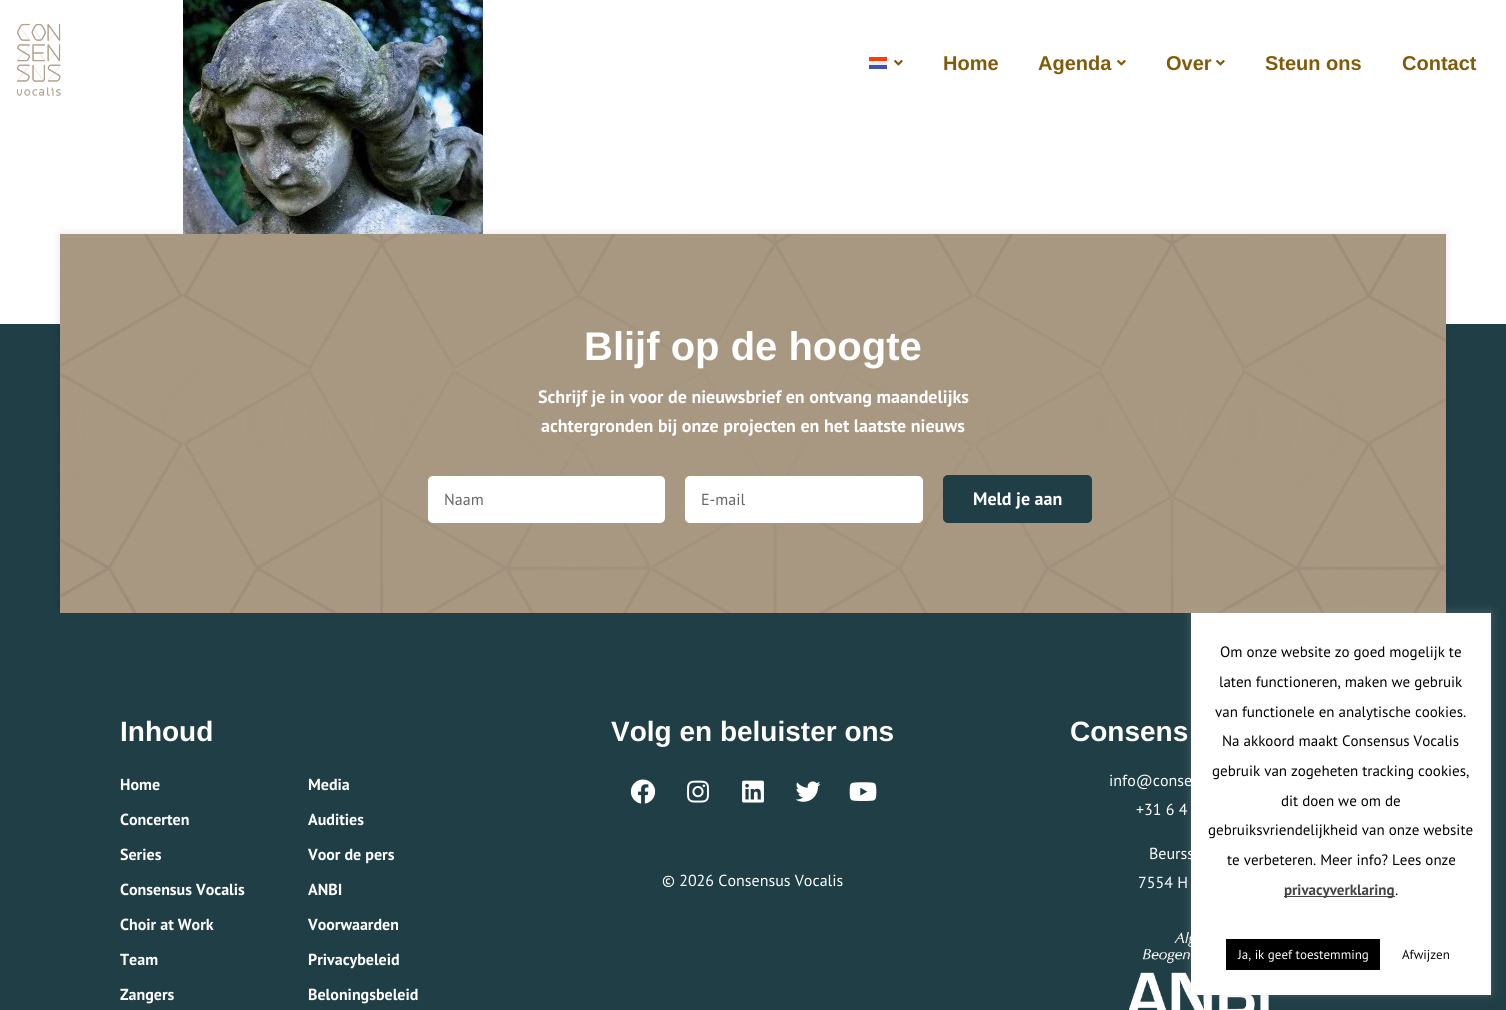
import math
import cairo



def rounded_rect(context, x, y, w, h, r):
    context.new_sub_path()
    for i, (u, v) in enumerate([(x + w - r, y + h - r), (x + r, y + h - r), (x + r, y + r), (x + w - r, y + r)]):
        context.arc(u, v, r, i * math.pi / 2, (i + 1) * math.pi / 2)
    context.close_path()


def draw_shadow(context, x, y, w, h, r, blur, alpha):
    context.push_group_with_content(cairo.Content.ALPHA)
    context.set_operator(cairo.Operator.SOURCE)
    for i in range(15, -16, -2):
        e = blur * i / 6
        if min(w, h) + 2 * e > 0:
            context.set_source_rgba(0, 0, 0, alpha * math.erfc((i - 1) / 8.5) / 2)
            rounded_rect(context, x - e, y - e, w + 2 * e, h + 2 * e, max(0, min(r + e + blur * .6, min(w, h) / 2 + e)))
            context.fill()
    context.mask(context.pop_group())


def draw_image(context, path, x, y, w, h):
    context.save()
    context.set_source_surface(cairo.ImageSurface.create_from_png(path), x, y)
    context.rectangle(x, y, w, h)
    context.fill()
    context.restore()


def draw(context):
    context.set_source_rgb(1, 1, 1)
    context.paint()
    draw_image(context, "images/1.png", 183, 0, 300, 234)
    draw_image(context, "images/2.png", 17, 23, 44, 73)
    context.set_source_rgb(63 / 255, 81 / 255, 181 / 255)
    context.rectangle(869, 65, 18, 4)
    context.fill()
    context.set_source_rgb(236 / 255, 239 / 255, 241 / 255)
    context.rectangle(869, 61, 18, 4)
    context.fill()
    context.set_source_rgb(1, 61 / 255, 0)
    context.rectangle(869, 57, 18, 4)
    context.fill()
    draw_image(context, "images/3.png", 894, 60, 9, 6)
    draw_image(context, "images/3.png", 1117, 60, 9, 6)
    draw_image(context, "images/3.png", 1216, 60, 9, 6)
    context.set_source_rgb(32 / 255, 62 / 255, 70 / 255)
    context.rectangle(0, 324, 1506, 289)
    context.fill()
    context.set_source_rgb(0, 0, 0)
    draw_shadow(context, 60, 234, 1386, 379, 0, 5, 0.1)
    context.set_source_rgb(168 / 255, 152 / 255, 130 / 255)
    context.rectangle(60, 234, 1386, 379)
    context.fill()
    draw_image(context, "images/4.png", 60, 234, 1386, 379)
    gradient = cairo.RadialGradient(0, 0, 0, 0, 0, 1)
    gradient.set_matrix(cairo.Matrix(1 / 980, 0, 0, 1 / 268, -1 * 753 / 980, -1 * 424 / 268))
    gradient.add_color_stop_rgba(0, 168 / 255, 152 / 255, 130 / 255, 1)
    gradient.add_color_stop_rgba(1, 168 / 255, 152 / 255, 130 / 255, 0.49)
    context.set_source(gradient)
    context.rectangle(60, 234, 1386, 379)
    context.fill()
    context.set_source_rgb(1, 1, 1)
    rounded_rect(context, 428, 476, 237, 47, 5)
    context.fill()
    rounded_rect(context, 685, 476, 238, 47, 5)
    context.fill()
    context.set_source_rgb(32 / 255, 62 / 255, 70 / 255)
    rounded_rect(context, 943, 475, 149, 48, 5)
    context.fill()
    context.rectangle(0, 613, 1506, 397)
    context.fill()
    draw_image(context, "images/5.png", 630, 779, 26, 25)
    draw_image(context, "images/6.png", 687, 780, 22, 23)
    draw_image(context, "images/7.png", 742, 780, 22, 23)
    draw_image(context, "images/8.png", 795, 781, 26, 21)
    draw_image(context, "images/9.png", 849, 782, 28, 19)
    draw_image(context, "images/10.png", 1129, 932, 140, 78)
    context.set_source_rgb(172 / 255, 171 / 255, 171 / 255)
    draw_shadow(context, 1191, 612, 300, 382, 0, 5, 0.3)
    context.set_source_rgb(1, 1, 1)
    context.rectangle(1191, 613, 300, 382)
    context.fill()
    context.set_source_rgb(68 / 255, 68 / 255, 68 / 255)
    context.rectangle(1284, 896, 111, 1)
    context.fill()
    context.set_source_rgb(0, 0, 0)
    context.rectangle(1226, 939, 154, 31)
    context.fill()
    context.select_font_face("Liberation Sans", cairo.FontSlant.NORMAL, cairo.FontWeight.BOLD)
    context.set_font_size(20)
    context.set_source_rgb(129 / 255, 90 / 255, 10 / 255)
    context.move_to(943, 70)
    context.show_text("Home")
    context.move_to(1038, 70)
    context.show_text("Agenda")
    context.move_to(1166, 70)
    context.show_text("Over")
    context.move_to(1265, 70)
    context.show_text("Steun ons")
    context.move_to(1402, 70)
    context.show_text("Contact")
    context.set_font_size(40)
    context.set_source_rgb(1, 1, 1)
    context.move_to(584, 360)
    context.show_text("Blijf op de hoogte")
    context.select_font_face("PT Sans", cairo.FontSlant.NORMAL, cairo.FontWeight.BOLD)
    context.set_font_size(18)
    context.move_to(538, 403)
    context.show_text("Schrijf je in voor de nieuwsbrief en ontvang maandelijks")
    context.move_to(541, 432)
    context.show_text("achtergronden bij onze projecten en het laatste nieuws")
    context.select_font_face("PT Sans")
    context.set_font_size(16)
    context.set_source_rgb(102 / 255, 102 / 255, 102 / 255)
    context.move_to(444, 505)
    context.show_text("Naam")
    context.move_to(701, 505)
    context.show_text("E-mail")
    context.select_font_face("PT Sans", cairo.FontSlant.NORMAL, cairo.FontWeight.BOLD)
    context.set_font_size(18)
    context.set_source_rgb(1, 1, 1)
    context.move_to(973, 505)
    context.show_text("Meld je aan")
    context.select_font_face("Liberation Sans", cairo.FontSlant.NORMAL, cairo.FontWeight.BOLD)
    context.set_font_size(28)
    context.move_to(120, 741)
    context.show_text("Inhoud")
    context.select_font_face("PT Sans", cairo.FontSlant.NORMAL, cairo.FontWeight.BOLD)
    context.set_font_size(16)
    context.move_to(120, 790)
    context.show_text("Home")
    context.move_to(120, 825)
    context.show_text("Concerten")
    context.move_to(120, 860)
    context.show_text("Series")
    context.move_to(120, 895)
    context.show_text("Consensus Vocalis")
    context.move_to(120, 930)
    context.show_text("Choir at Work")
    context.move_to(120, 965)
    context.show_text("Team")
    context.move_to(120, 1000)
    context.show_text("Zangers")
    context.move_to(308, 790)
    context.show_text("Media")
    context.move_to(308, 825)
    context.show_text("Audities")
    context.move_to(308, 860)
    context.show_text("Voor de pers")
    context.move_to(308, 895)
    context.show_text("ANBI")
    context.move_to(308, 930)
    context.show_text("Voorwaarden")
    context.move_to(308, 965)
    context.show_text("Privacybeleid")
    context.move_to(308, 1000)
    context.show_text("Beloningsbeleid")
    context.select_font_face("Liberation Sans", cairo.FontSlant.NORMAL, cairo.FontWeight.BOLD)
    context.set_font_size(28)
    context.move_to(611, 741)
    context.show_text("Volg en beluister ons")
    context.select_font_face("PT Sans")
    context.set_font_size(16)
    context.move_to(662, 886)
    context.show_text("© 2026 Consensus Vocalis")
    context.select_font_face("Liberation Sans", cairo.FontSlant.NORMAL, cairo.FontWeight.BOLD)
    context.set_font_size(28)
    context.move_to(1070, 741)
    context.show_text("Consens")
    context.select_font_face("PT Sans")
    context.set_font_size(16)
    context.move_to(1109, 786)
    context.show_text("info@conse")
    context.move_to(1136, 815)
    context.show_text("+31 6 4")
    context.move_to(1149, 859)
    context.show_text("Beurss")
    context.move_to(1138, 888)
    context.show_text("7554 H")
    context.set_font_size(15)
    context.set_source_rgb(0, 0, 0)
    context.move_to(1220, 657)
    context.show_text("Om onze website zo goed mogelijk te")
    context.move_to(1219, 687)
    context.show_text("laten functioneren, maken we gebruik")
    context.move_to(1215, 717)
    context.show_text("van functionele en analytische cookies.")
    context.move_to(1222, 746)
    context.show_text("Na akkoord maakt Consensus Vocalis")
    context.move_to(1212, 776)
    context.show_text("gebruik van zogeheten tracking cookies,")
    context.move_to(1281, 806)
    context.show_text("dit doen we om de")
    context.move_to(1208, 835)
    context.show_text("gebruiksvriendelijkheid van onze website")
    context.move_to(1227, 865)
    context.show_text("te verbeteren. Meer info? Lees onze")
    context.select_font_face("PT Sans", cairo.FontSlant.NORMAL, cairo.FontWeight.BOLD)
    context.set_source_rgb(68 / 255, 68 / 255, 68 / 255)
    context.move_to(1284, 895)
    context.show_text("privacyverklaring")
    context.select_font_face("PT Sans")
    context.set_source_rgb(0, 0, 0)
    context.move_to(1395, 895)
    context.show_text(".")
    context.set_font_size(13)
    context.set_source_rgb(1, 1, 1)
    context.move_to(1238, 959)
    context.show_text("Ja, ik geef toestemming")
    context.set_source_rgb(10 / 255, 10 / 255, 10 / 255)
    context.move_to(1402, 959)
    context.show_text("Afwijzen")


surface = cairo.ImageSurface(cairo.Format.RGB24, 1506, 1010)
context = cairo.Context(surface)
options = cairo.FontOptions()
options.set_hint_metrics(cairo.HintMetrics.OFF)
options.set_hint_style(cairo.HintStyle.NONE)
context.set_font_options(options)
context.set_miter_limit(4)
draw(context)
surface.write_to_png("out.png")
